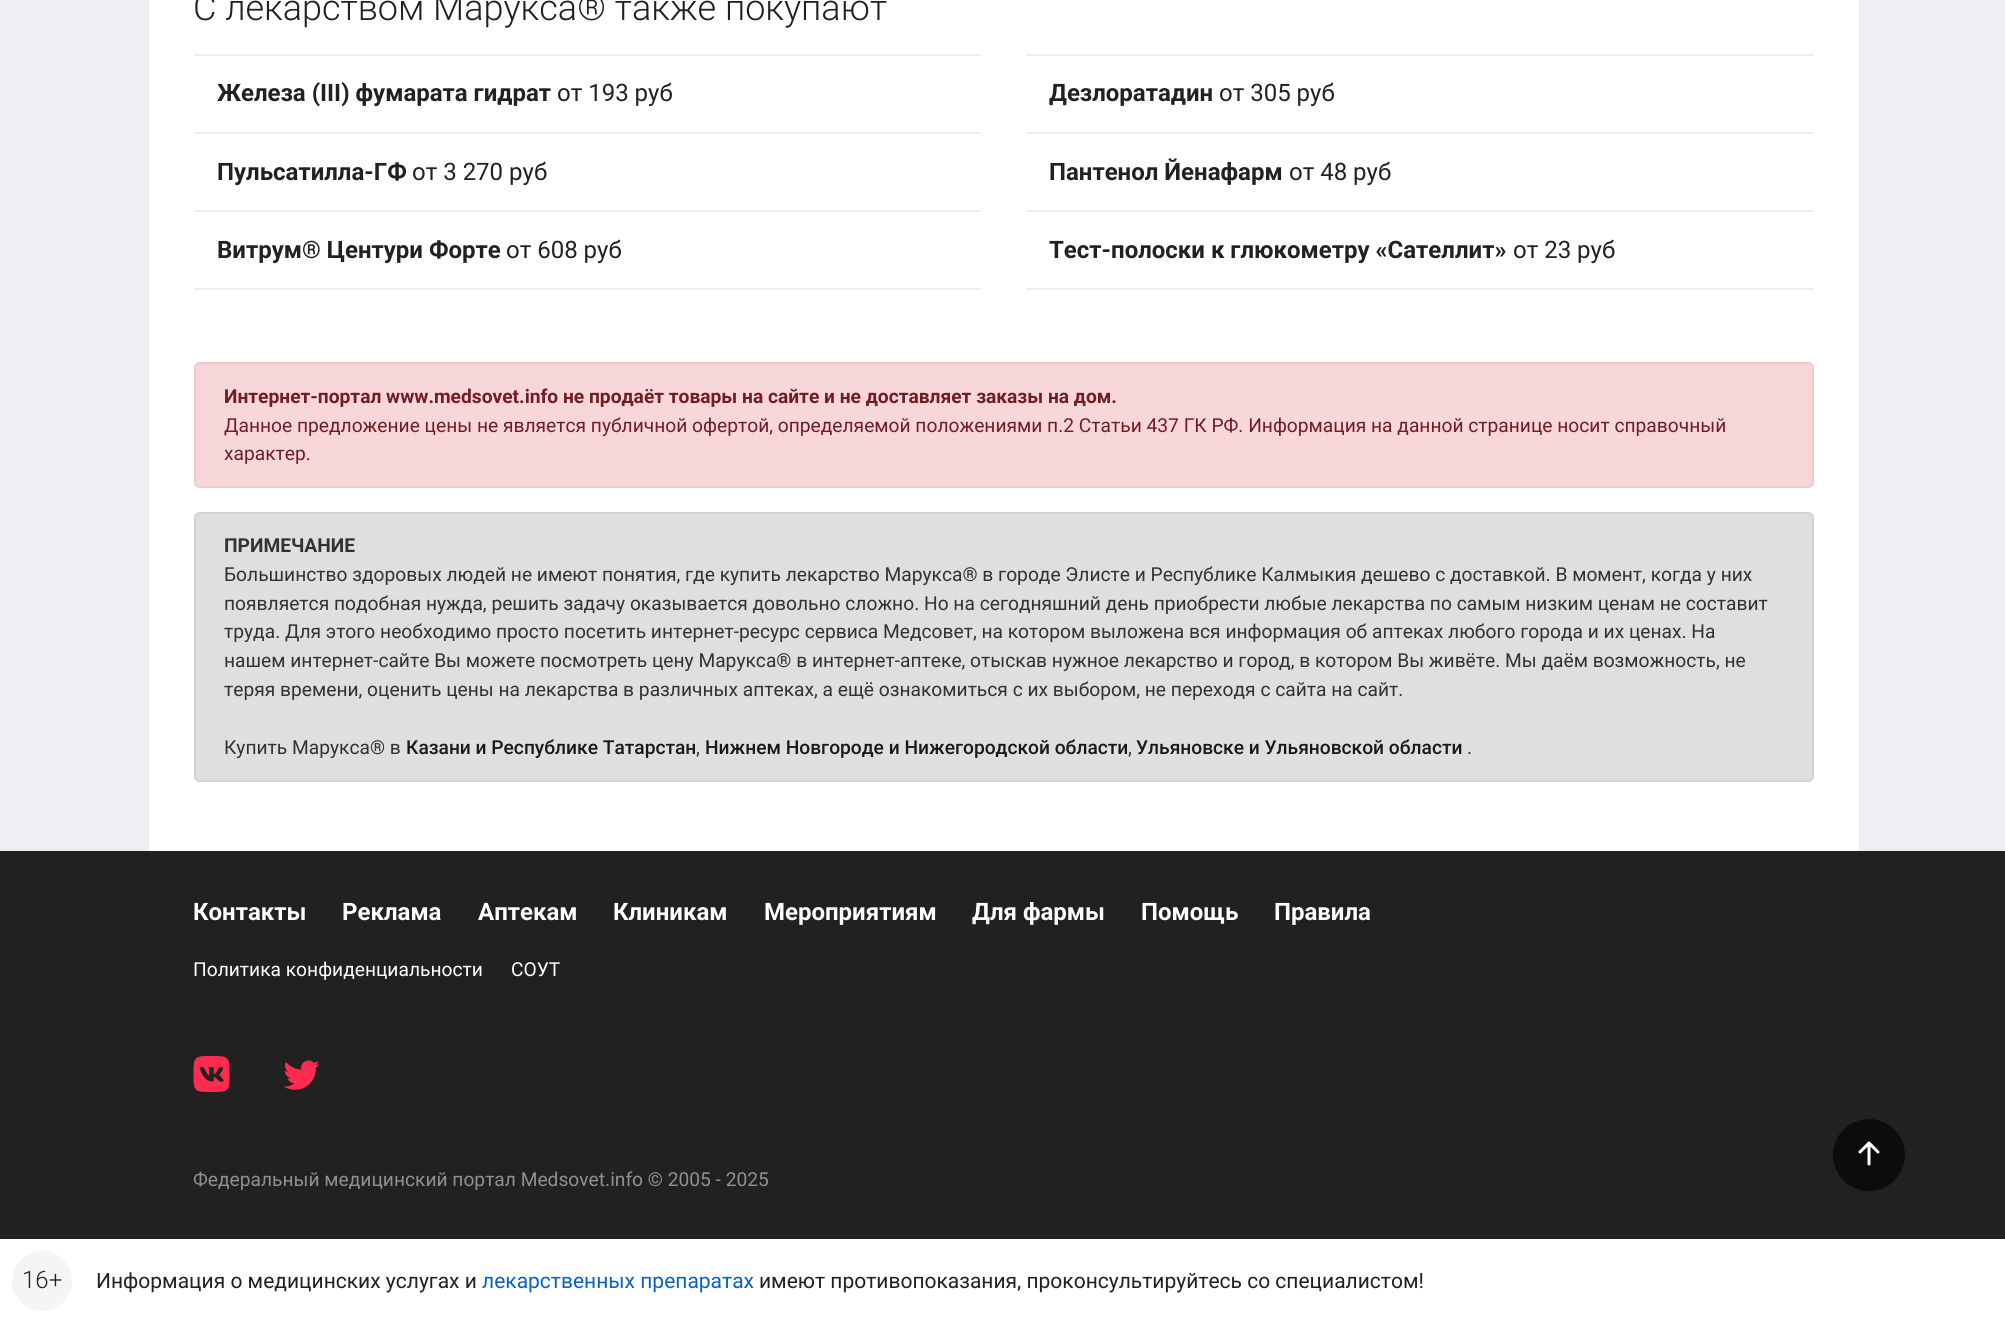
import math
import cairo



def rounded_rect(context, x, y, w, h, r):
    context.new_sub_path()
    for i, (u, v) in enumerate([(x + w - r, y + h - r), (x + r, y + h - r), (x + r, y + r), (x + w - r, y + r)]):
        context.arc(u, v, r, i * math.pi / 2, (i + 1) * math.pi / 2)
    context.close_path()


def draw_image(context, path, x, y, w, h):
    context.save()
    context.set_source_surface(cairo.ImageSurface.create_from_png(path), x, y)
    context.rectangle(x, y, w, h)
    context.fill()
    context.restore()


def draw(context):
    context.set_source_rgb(237 / 255, 239 / 255, 242 / 255)
    context.paint()
    context.set_source_rgb(1, 1, 1)
    context.rectangle(149, 0, 1710, 851)
    context.fill()
    context.set_source_rgb(238 / 255, 238 / 255, 238 / 255)
    context.rectangle(194, 288, 787, 2)
    context.fill()
    context.rectangle(194, 54, 787, 2)
    context.fill()
    context.rectangle(194, 132, 787, 2)
    context.fill()
    context.rectangle(194, 210, 787, 2)
    context.fill()
    context.rectangle(1026, 288, 788, 2)
    context.fill()
    context.rectangle(1026, 54, 788, 2)
    context.fill()
    context.rectangle(1026, 132, 788, 2)
    context.fill()
    context.rectangle(1026, 210, 788, 2)
    context.fill()
    context.set_source_rgb(248 / 255, 215 / 255, 218 / 255)
    rounded_rect(context, 195, 363, 1618, 124, 5)
    context.fill_preserve()
    context.set_source_rgb(245 / 255, 198 / 255, 203 / 255)
    context.stroke()
    context.set_source_rgb(223 / 255, 223 / 255, 223 / 255)
    rounded_rect(context, 195, 513, 1618, 268, 5)
    context.fill_preserve()
    context.set_source_rgb(211 / 255, 211 / 255, 211 / 255)
    context.stroke()
    context.set_source_rgb(33 / 255, 33 / 255, 33 / 255)
    context.rectangle(0, 851, 2005, 388)
    context.fill()
    draw_image(context, "images/1.png", 193, 1056, 37, 36)
    draw_image(context, "images/2.png", 283, 1060, 37, 30)
    context.set_source_rgb(12 / 255, 12 / 255, 12 / 255)
    context.arc(1869, 1155, 36, 0, 2 * math.pi)
    context.fill()
    draw_image(context, "images/3.png", 1858, 1141, 22, 25)
    context.set_source_rgb(1, 1, 1)
    context.rectangle(0, 1239, 2005, 84)
    context.fill()
    context.set_source_rgb(245 / 255, 245 / 255, 245 / 255)
    context.arc(42, 1281, 30, 0, 2 * math.pi)
    context.fill()
    context.select_font_face("Roboto Light")
    context.set_font_size(36)
    context.set_source_rgb(33 / 255, 33 / 255, 33 / 255)
    context.move_to(193, 20)
    context.show_text("С лекарством Марукса® также покупают")
    context.select_font_face("Roboto", cairo.FontSlant.NORMAL, cairo.FontWeight.BOLD)
    context.set_font_size(24)
    context.move_to(217, 101)
    context.show_text("Железа (III) фумарата гидрат")
    context.select_font_face("Roboto")
    context.move_to(557, 101)
    context.show_text("от 193 руб")
    context.select_font_face("Roboto", cairo.FontSlant.NORMAL, cairo.FontWeight.BOLD)
    context.move_to(217, 180)
    context.show_text("Пульсатилла-ГФ")
    context.select_font_face("Roboto")
    context.move_to(412, 180)
    context.show_text("от 3 270 руб")
    context.select_font_face("Roboto", cairo.FontSlant.NORMAL, cairo.FontWeight.BOLD)
    context.move_to(217, 258)
    context.show_text("Витрум® Центури Форте")
    context.select_font_face("Roboto")
    context.move_to(506, 258)
    context.show_text("от 608 руб")
    context.select_font_face("Roboto", cairo.FontSlant.NORMAL, cairo.FontWeight.BOLD)
    context.move_to(1049, 101)
    context.show_text("Дезлоратадин")
    context.select_font_face("Roboto")
    context.move_to(1219, 101)
    context.show_text("от 305 руб")
    context.select_font_face("Roboto", cairo.FontSlant.NORMAL, cairo.FontWeight.BOLD)
    context.move_to(1049, 180)
    context.show_text("Пантенол Йенафарм")
    context.select_font_face("Roboto")
    context.move_to(1289, 180)
    context.show_text("от 48 руб")
    context.select_font_face("Roboto", cairo.FontSlant.NORMAL, cairo.FontWeight.BOLD)
    context.move_to(1049, 258)
    context.show_text("Тест-полоски к глюкометру «Сателлит»")
    context.select_font_face("Roboto")
    context.move_to(1513, 258)
    context.show_text("от 23 руб")
    context.select_font_face("Roboto", cairo.FontSlant.NORMAL, cairo.FontWeight.BOLD)
    context.set_font_size(19.2)
    context.set_source_rgb(114 / 255, 28 / 255, 36 / 255)
    context.move_to(224, 403)
    context.show_text("Интернет-портал www.medsovet.info не продаёт товары на сайте и не доставляет заказы на дом.")
    context.select_font_face("Roboto")
    context.move_to(224, 432)
    context.show_text("Данное предложение цены не является публичной офертой, определяемой положениями п.2 Статьи 437 ГК РФ. Информация на данной странице носит справочный")
    context.move_to(224, 460)
    context.show_text("характер.")
    context.select_font_face("Roboto", cairo.FontSlant.NORMAL, cairo.FontWeight.BOLD)
    context.set_source_rgb(50 / 255, 50 / 255, 50 / 255)
    context.move_to(224, 552)
    context.show_text("ПРИМЕЧАНИЕ")
    context.select_font_face("Roboto")
    context.move_to(224, 581)
    context.show_text("Большинство здоровых людей не имеют понятия, где купить лекарство Марукса® в городе Элисте и Республике Калмыкия дешево с доставкой. В момент, когда у них")
    context.move_to(224, 610)
    context.show_text("появляется подобная нужда, решить задачу оказывается довольно сложно. Но на сегодняшний день приобрести любые лекарства по самым низким ценам не составит")
    context.move_to(224, 638)
    context.show_text("труда. Для этого необходимо просто посетить интернет-ресурс сервиса Медсовет, на котором выложена вся информация об аптеках любого города и их ценах. На")
    context.move_to(224, 667)
    context.show_text("нашем интернет-сайте Вы можете посмотреть цену Марукса® в интернет-аптеке, отыскав нужное лекарство и город, в котором Вы живёте. Мы даём возможность, не")
    context.move_to(224, 696)
    context.show_text("теряя времени, оценить цены на лекарства в различных аптеках, а ещё ознакомиться с их выбором, не переходя с сайта на сайт.")
    context.move_to(224, 754)
    context.show_text("Купить Марукса® в")
    context.select_font_face("Roboto Medium")
    context.set_source_rgb(25 / 255, 25 / 255, 25 / 255)
    context.move_to(406, 754)
    context.show_text("Казани и Республике Татарстан")
    context.select_font_face("Roboto")
    context.set_source_rgb(50 / 255, 50 / 255, 50 / 255)
    context.move_to(696, 754)
    context.show_text(",")
    context.select_font_face("Roboto Medium")
    context.set_source_rgb(25 / 255, 25 / 255, 25 / 255)
    context.move_to(705, 754)
    context.show_text("Нижнем Новгороде и Нижегородской области")
    context.select_font_face("Roboto")
    context.set_source_rgb(50 / 255, 50 / 255, 50 / 255)
    context.move_to(1128, 754)
    context.show_text(",")
    context.select_font_face("Roboto Medium")
    context.set_source_rgb(25 / 255, 25 / 255, 25 / 255)
    context.move_to(1136, 754)
    context.show_text("Ульяновске и Ульяновской области")
    context.select_font_face("Roboto")
    context.set_source_rgb(50 / 255, 50 / 255, 50 / 255)
    context.move_to(1467, 754)
    context.show_text(".")
    context.select_font_face("Roboto", cairo.FontSlant.NORMAL, cairo.FontWeight.BOLD)
    context.set_font_size(24)
    context.set_source_rgb(1, 1, 1)
    context.move_to(193, 920)
    context.show_text("Контакты")
    context.move_to(342, 920)
    context.show_text("Реклама")
    context.move_to(478, 920)
    context.show_text("Аптекам")
    context.move_to(613, 920)
    context.show_text("Клиникам")
    context.move_to(764, 920)
    context.show_text("Мероприятиям")
    context.move_to(972, 920)
    context.show_text("Для фармы")
    context.move_to(1141, 920)
    context.show_text("Помощь")
    context.move_to(1274, 920)
    context.show_text("Правила")
    context.select_font_face("Roboto")
    context.set_font_size(19.2)
    context.move_to(193, 976)
    context.show_text("Политика конфиденциальности")
    context.move_to(511, 976)
    context.show_text("СОУТ")
    context.set_source_rgb(144 / 255, 144 / 255, 144 / 255)
    context.move_to(193, 1186)
    context.show_text("Федеральный медицинский портал Medsovet.info © 2005 - 2025")
    context.select_font_face("Roboto Light")
    context.set_font_size(24)
    context.set_source_rgb(33 / 255, 33 / 255, 33 / 255)
    context.move_to(22, 1288)
    context.show_text("16+")
    context.select_font_face("Roboto")
    context.set_font_size(21)
    context.move_to(96, 1288)
    context.show_text("Информация о медицинских услугах и")
    context.set_source_rgb(9 / 255, 96 / 255, 198 / 255)
    context.move_to(482, 1288)
    context.show_text("лекарственных препаратах")
    context.set_source_rgb(33 / 255, 33 / 255, 33 / 255)
    context.move_to(759, 1288)
    context.show_text("имеют противопоказания, проконсультируйтесь со специалистом!")


surface = cairo.ImageSurface(cairo.Format.RGB24, 2005, 1323)
context = cairo.Context(surface)
options = cairo.FontOptions()
options.set_hint_metrics(cairo.HintMetrics.OFF)
options.set_hint_style(cairo.HintStyle.NONE)
context.set_font_options(options)
context.set_miter_limit(4)
draw(context)
surface.write_to_png("out.png")
